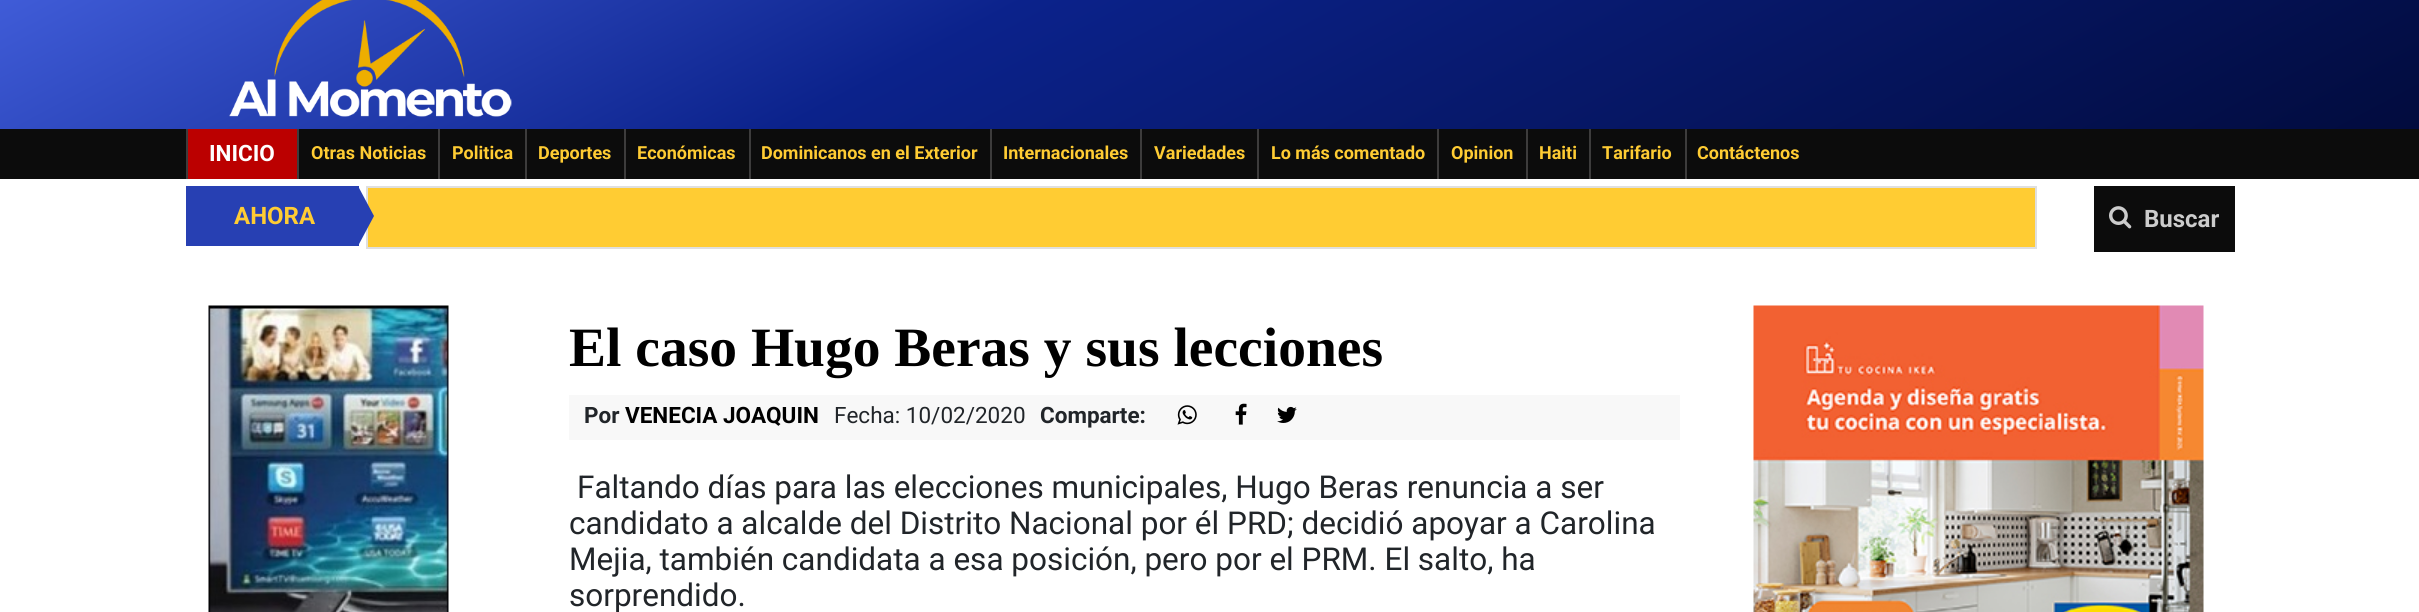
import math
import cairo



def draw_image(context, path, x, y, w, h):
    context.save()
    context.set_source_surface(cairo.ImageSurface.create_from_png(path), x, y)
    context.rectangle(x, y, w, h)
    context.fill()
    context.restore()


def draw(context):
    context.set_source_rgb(1, 1, 1)
    context.paint()
    gradient = cairo.LinearGradient(892, -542, 1527, 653)
    gradient.add_color_stop_rgba(0, 70 / 255, 99 / 255, 225 / 255, 1)
    gradient.add_color_stop_rgba(0.4, 11 / 255, 34 / 255, 139 / 255, 1)
    gradient.add_color_stop_rgba(1, 1 / 255, 10 / 255, 57 / 255, 1)
    context.set_source(gradient)
    context.rectangle(0, 0, 2419, 129)
    context.fill()
    draw_image(context, "images/1.png", 229, 0, 283, 117)
    context.set_source_rgb(12 / 255, 12 / 255, 12 / 255)
    context.rectangle(0, 129, 2419, 50)
    context.fill()
    context.set_source_rgb(61 / 255, 60 / 255, 60 / 255)
    context.rectangle(186, 129, 2, 50)
    context.fill()
    context.set_source_rgb(187 / 255, 0, 0)
    context.rectangle(188, 129, 109, 50)
    context.fill()
    context.set_source_rgb(61 / 255, 60 / 255, 60 / 255)
    context.rectangle(297, 129, 2, 50)
    context.fill()
    context.rectangle(438, 129, 2, 50)
    context.fill()
    context.rectangle(525, 129, 2, 50)
    context.fill()
    context.rectangle(624, 129, 2, 50)
    context.fill()
    context.rectangle(749, 129, 2, 50)
    context.fill()
    context.rectangle(990, 129, 2, 50)
    context.fill()
    context.rectangle(1140, 129, 2, 50)
    context.fill()
    context.rectangle(1257, 129, 2, 50)
    context.fill()
    context.rectangle(1437, 129, 2, 50)
    context.fill()
    context.rectangle(1526, 129, 2, 50)
    context.fill()
    context.rectangle(1589, 129, 2, 50)
    context.fill()
    context.rectangle(1685, 129, 2, 50)
    context.fill()
    context.set_source_rgb(39 / 255, 64 / 255, 179 / 255)
    context.rectangle(186, 186, 173, 60)
    context.fill()
    context.set_source_rgb(1, 204 / 255, 51 / 255)
    context.rectangle(367, 187, 1669, 61)
    context.fill_preserve()
    context.set_source_rgb(223 / 255, 223 / 255, 223 / 255)
    context.stroke()
    context.set_source_rgb(39 / 255, 64 / 255, 179 / 255)
    context.new_path()
    context.move_to(358, 246)
    context.line_to(358, 186)
    context.line_to(374, 216)
    context.close_path()
    context.fill()
    context.set_source_rgb(12 / 255, 12 / 255, 12 / 255)
    context.rectangle(2094, 186, 141, 66)
    context.fill()
    draw_image(context, "images/2.png", 2109, 206, 23, 23)
    draw_image(context, "images/3.png", 208, 305, 241, 307)
    context.set_source_rgb(248 / 255, 248 / 255, 248 / 255)
    context.rectangle(569, 395, 1111, 45)
    context.fill()
    draw_image(context, "images/4.png", 1177, 405, 20, 20)
    draw_image(context, "images/5.png", 1235, 403, 12, 22)
    draw_image(context, "images/6.png", 1277, 406, 20, 17)
    draw_image(context, "images/7.png", 1753, 305, 451, 307)
    context.select_font_face("Roboto", cairo.FontSlant.NORMAL, cairo.FontWeight.BOLD)
    context.set_font_size(22.5)
    context.set_source_rgb(1, 1, 1)
    context.move_to(209, 161)
    context.show_text("INICIO")
    context.set_font_size(18)
    context.set_source_rgb(1, 204 / 255, 51 / 255)
    context.move_to(311, 159)
    context.show_text("Otras Noticias")
    context.move_to(452, 159)
    context.show_text("Politica")
    context.move_to(538, 159)
    context.show_text("Deportes")
    context.move_to(637, 159)
    context.show_text("Económicas")
    context.move_to(761, 159)
    context.show_text("Dominicanos en el Exterior")
    context.move_to(1003, 159)
    context.show_text("Internacionales")
    context.move_to(1154, 159)
    context.show_text("Variedades")
    context.move_to(1271, 159)
    context.show_text("Lo más comentado")
    context.move_to(1451, 159)
    context.show_text("Opinion")
    context.move_to(1539, 159)
    context.show_text("Haiti")
    context.move_to(1602, 159)
    context.show_text("Tarifario")
    context.move_to(1697, 159)
    context.show_text("Contáctenos")
    context.set_font_size(24)
    context.move_to(234, 224)
    context.show_text("AHORA")
    context.set_source_rgb(204 / 255, 204 / 255, 204 / 255)
    context.move_to(2144, 227)
    context.show_text("Buscar")
    context.select_font_face("Liberation Serif", cairo.FontSlant.NORMAL, cairo.FontWeight.BOLD)
    context.set_font_size(55.5)
    context.set_source_rgb(0, 0, 0)
    context.move_to(569, 366)
    context.show_text("El caso Hugo Beras y sus lecciones")
    context.select_font_face("Roboto", cairo.FontSlant.NORMAL, cairo.FontWeight.BOLD)
    context.set_font_size(22.5)
    context.set_source_rgb(33 / 255, 37 / 255, 41 / 255)
    context.move_to(584, 423)
    context.show_text("Por")
    context.set_source_rgb(0, 0, 0)
    context.move_to(625, 423)
    context.show_text("VENECIA JOAQUIN")
    context.select_font_face("Roboto")
    context.set_source_rgb(33 / 255, 37 / 255, 41 / 255)
    context.move_to(834, 423)
    context.show_text("Fecha: 10/02/2020")
    context.select_font_face("Roboto", cairo.FontSlant.NORMAL, cairo.FontWeight.BOLD)
    context.move_to(1040, 423)
    context.show_text("Comparte:")
    context.select_font_face("Roboto")
    context.set_font_size(31.5)
    context.move_to(577, 498)
    context.show_text("Faltando días para las elecciones municipales, Hugo Beras renuncia a ser")
    context.move_to(569, 534)
    context.show_text("candidato a alcalde del Distrito Nacional por él PRD; decidió apoyar a Carolina")
    context.move_to(569, 570)
    context.show_text("Mejia, también candidata a esa posición, pero por el PRM. El salto, ha")
    context.move_to(569, 606)
    context.show_text("sorprendido.")


surface = cairo.ImageSurface(cairo.Format.RGB24, 2419, 612)
context = cairo.Context(surface)
options = cairo.FontOptions()
options.set_hint_metrics(cairo.HintMetrics.OFF)
options.set_hint_style(cairo.HintStyle.NONE)
context.set_font_options(options)
context.set_miter_limit(4)
draw(context)
surface.write_to_png("out.png")
